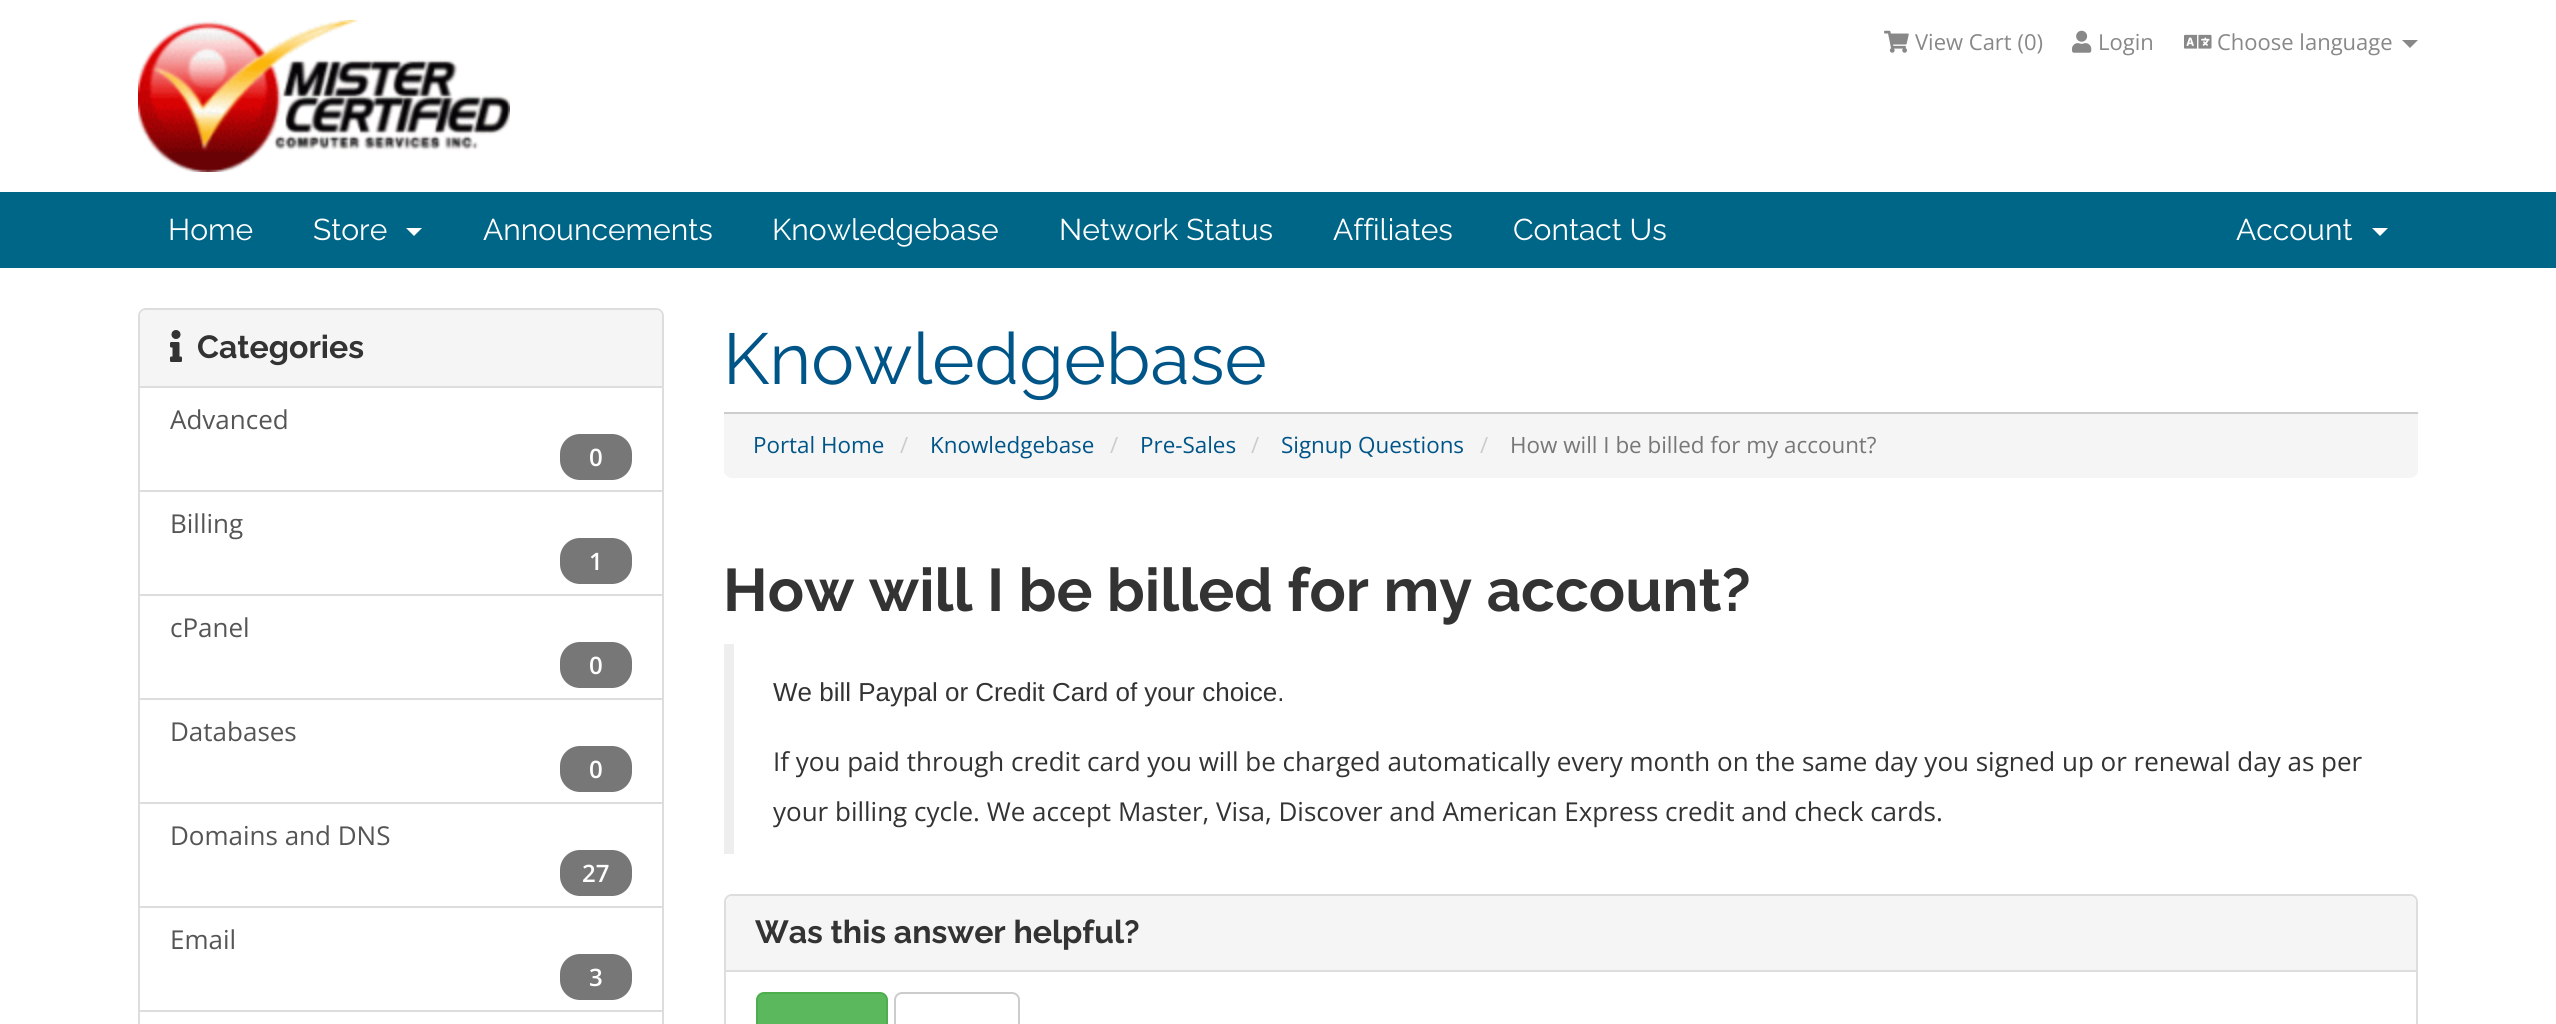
import math
import cairo



def rounded_rect(context, x, y, w, h, r):
    context.new_sub_path()
    for i, (u, v) in enumerate([(x + w - r, y + h - r), (x + r, y + h - r), (x + r, y + r), (x + w - r, y + r)]):
        context.arc(u, v, r, i * math.pi / 2, (i + 1) * math.pi / 2)
    context.close_path()


def draw_image(context, path, x, y, w, h):
    context.save()
    context.set_source_surface(cairo.ImageSurface.create_from_png(path), x, y)
    context.rectangle(x, y, w, h)
    context.fill()
    context.restore()


def draw(context):
    context.set_source_rgb(1, 1, 1)
    context.paint()
    draw_image(context, "images/1.png", 138, 20, 372, 152)
    draw_image(context, "images/2.png", 1884, 30, 25, 23)
    draw_image(context, "images/3.png", 2072, 30, 20, 23)
    draw_image(context, "images/4.png", 2184, 34, 28, 15)
    context.set_source_rgb(136 / 255, 136 / 255, 136 / 255)
    context.new_path()
    context.move_to(2402, 40)
    context.line_to(2418, 40)
    context.line_to(2410, 48)
    context.close_path()
    context.fill()
    context.set_source_rgb(0, 102 / 255, 135 / 255)
    context.rectangle(0, 192, 2556, 76)
    context.fill()
    context.set_source_rgb(1, 1, 1)
    context.new_path()
    context.move_to(406, 228)
    context.line_to(422, 228)
    context.line_to(414, 236)
    context.close_path()
    context.fill()
    context.new_path()
    context.move_to(2372, 228)
    context.line_to(2388, 228)
    context.line_to(2380, 236)
    context.close_path()
    context.fill()
    rounded_rect(context, 139, 309, 524, 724, 7)
    context.set_source_rgb(221 / 255, 221 / 255, 221 / 255)
    context.stroke()
    context.set_source_rgb(245 / 255, 245 / 255, 245 / 255)
    context.new_path()
    context.move_to(146, 310)
    context.line_to(656, 310)
    context.curve_to(659.5, 310, 662, 312.5, 662, 316)
    context.line_to(662, 388)
    context.line_to(140, 388)
    context.line_to(140, 316)
    context.curve_to(140, 312.5, 142.5, 310, 146, 310)
    context.close_path()
    context.fill()
    context.set_source_rgb(221 / 255, 221 / 255, 221 / 255)
    context.rectangle(140, 386, 522, 2)
    context.fill()
    draw_image(context, "images/5.png", 170, 330, 12, 32)
    context.rectangle(140, 490, 522, 2)
    context.fill()
    context.set_source_rgb(119 / 255, 119 / 255, 119 / 255)
    rounded_rect(context, 560, 434, 72, 46, 20)
    context.fill()
    context.set_source_rgb(221 / 255, 221 / 255, 221 / 255)
    context.rectangle(140, 594, 522, 2)
    context.fill()
    context.set_source_rgb(119 / 255, 119 / 255, 119 / 255)
    rounded_rect(context, 560, 538, 72, 46, 20)
    context.fill()
    context.set_source_rgb(221 / 255, 221 / 255, 221 / 255)
    context.rectangle(140, 698, 522, 2)
    context.fill()
    context.set_source_rgb(119 / 255, 119 / 255, 119 / 255)
    rounded_rect(context, 560, 642, 72, 46, 20)
    context.fill()
    context.set_source_rgb(221 / 255, 221 / 255, 221 / 255)
    context.rectangle(140, 802, 522, 2)
    context.fill()
    context.set_source_rgb(119 / 255, 119 / 255, 119 / 255)
    rounded_rect(context, 560, 746, 72, 46, 20)
    context.fill()
    context.set_source_rgb(221 / 255, 221 / 255, 221 / 255)
    context.rectangle(140, 906, 522, 2)
    context.fill()
    context.set_source_rgb(119 / 255, 119 / 255, 119 / 255)
    rounded_rect(context, 560, 850, 72, 46, 20)
    context.fill()
    context.set_source_rgb(221 / 255, 221 / 255, 221 / 255)
    context.rectangle(140, 1010, 522, 2)
    context.fill()
    context.set_source_rgb(119 / 255, 119 / 255, 119 / 255)
    rounded_rect(context, 560, 954, 72, 46, 20)
    context.fill()
    context.set_source_rgb(204 / 255, 204 / 255, 204 / 255)
    context.rectangle(724, 412, 1694, 2)
    context.fill()
    context.set_source_rgb(245 / 255, 245 / 255, 245 / 255)
    context.new_path()
    context.move_to(724, 414)
    context.line_to(2418, 414)
    context.line_to(2418, 470)
    context.curve_to(2418, 474.5, 2414.5, 478, 2410, 478)
    context.line_to(732, 478)
    context.curve_to(727.5, 478, 724, 474.5, 724, 470)
    context.close_path()
    context.fill()
    context.set_source_rgb(238 / 255, 238 / 255, 238 / 255)
    context.rectangle(724, 644, 10, 210)
    context.fill()
    rounded_rect(context, 725, 895, 1692, 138, 7)
    context.set_source_rgb(221 / 255, 221 / 255, 221 / 255)
    context.stroke()
    context.set_source_rgb(245 / 255, 245 / 255, 245 / 255)
    context.new_path()
    context.move_to(732, 896)
    context.line_to(2410, 896)
    context.curve_to(2413.5, 896, 2416, 898.5, 2416, 902)
    context.line_to(2416, 972)
    context.line_to(726, 972)
    context.line_to(726, 902)
    context.curve_to(726, 898.5, 728.5, 896, 732, 896)
    context.close_path()
    context.fill()
    context.set_source_rgb(221 / 255, 221 / 255, 221 / 255)
    context.rectangle(726, 970, 1690, 2)
    context.fill()
    context.set_source_rgb(92 / 255, 184 / 255, 92 / 255)
    rounded_rect(context, 757, 993, 130, 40, 7)
    context.fill_preserve()
    context.set_source_rgb(76 / 255, 174 / 255, 76 / 255)
    context.stroke()
    rounded_rect(context, 895, 993, 124, 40, 7)
    context.set_source_rgb(204 / 255, 204 / 255, 204 / 255)
    context.stroke()
    context.select_font_face("Open Sans")
    context.set_font_size(22)
    context.set_source_rgb(136 / 255, 136 / 255, 136 / 255)
    context.move_to(1915, 50)
    context.show_text("View Cart (0)")
    context.move_to(2098, 50)
    context.show_text("Login")
    context.move_to(2217, 50)
    context.show_text("Choose language")
    context.select_font_face("Raleway")
    context.set_font_size(30)
    context.set_source_rgb(1, 1, 1)
    context.move_to(168, 240)
    context.show_text("Home")
    context.move_to(313, 240)
    context.show_text("Store")
    context.move_to(483, 240)
    context.show_text("Announcements")
    context.move_to(772, 240)
    context.show_text("Knowledgebase")
    context.move_to(1059, 240)
    context.show_text("Network Status")
    context.move_to(1333, 240)
    context.show_text("Affiliates")
    context.move_to(1513, 240)
    context.show_text("Contact Us")
    context.move_to(2236, 240)
    context.show_text("Account")
    context.select_font_face("Raleway", cairo.FontSlant.NORMAL, cairo.FontWeight.BOLD)
    context.set_font_size(32)
    context.set_source_rgb(51 / 255, 51 / 255, 51 / 255)
    context.move_to(197, 358)
    context.show_text("Categories")
    context.select_font_face("Open Sans")
    context.set_font_size(26)
    context.set_source_rgb(85 / 255, 85 / 255, 85 / 255)
    context.move_to(170, 429)
    context.show_text("Advanced")
    context.select_font_face("Open Sans SemiBold")
    context.set_font_size(24)
    context.set_source_rgb(1, 1, 1)
    context.move_to(589, 466)
    context.show_text("0")
    context.select_font_face("Open Sans")
    context.set_font_size(26)
    context.set_source_rgb(85 / 255, 85 / 255, 85 / 255)
    context.move_to(170, 533)
    context.show_text("Billing")
    context.select_font_face("Open Sans SemiBold")
    context.set_font_size(24)
    context.set_source_rgb(1, 1, 1)
    context.move_to(589, 570)
    context.show_text("1")
    context.select_font_face("Open Sans")
    context.set_font_size(26)
    context.set_source_rgb(85 / 255, 85 / 255, 85 / 255)
    context.move_to(170, 637)
    context.show_text("cPanel")
    context.select_font_face("Open Sans SemiBold")
    context.set_font_size(24)
    context.set_source_rgb(1, 1, 1)
    context.move_to(589, 674)
    context.show_text("0")
    context.select_font_face("Open Sans")
    context.set_font_size(26)
    context.set_source_rgb(85 / 255, 85 / 255, 85 / 255)
    context.move_to(170, 741)
    context.show_text("Databases")
    context.select_font_face("Open Sans SemiBold")
    context.set_font_size(24)
    context.set_source_rgb(1, 1, 1)
    context.move_to(589, 778)
    context.show_text("0")
    context.select_font_face("Open Sans")
    context.set_font_size(26)
    context.set_source_rgb(85 / 255, 85 / 255, 85 / 255)
    context.move_to(170, 845)
    context.show_text("Domains and DNS")
    context.select_font_face("Open Sans SemiBold")
    context.set_font_size(24)
    context.set_source_rgb(1, 1, 1)
    context.move_to(582, 882)
    context.show_text("27")
    context.select_font_face("Open Sans")
    context.set_font_size(26)
    context.set_source_rgb(85 / 255, 85 / 255, 85 / 255)
    context.move_to(170, 949)
    context.show_text("Email")
    context.select_font_face("Open Sans SemiBold")
    context.set_font_size(24)
    context.set_source_rgb(1, 1, 1)
    context.move_to(589, 986)
    context.show_text("3")
    context.select_font_face("Raleway")
    context.set_font_size(72)
    context.set_source_rgb(0, 85 / 255, 136 / 255)
    context.move_to(723, 384)
    context.show_text("Knowledgebase")
    context.select_font_face("Open Sans")
    context.set_font_size(22.4)
    context.move_to(753, 453)
    context.show_text("Portal Home")
    context.set_source_rgb(204 / 255, 204 / 255, 204 / 255)
    context.move_to(900, 453)
    context.show_text("/")
    context.set_source_rgb(0, 85 / 255, 136 / 255)
    context.move_to(930, 453)
    context.show_text("Knowledgebase")
    context.set_source_rgb(204 / 255, 204 / 255, 204 / 255)
    context.move_to(1110, 453)
    context.show_text("/")
    context.set_source_rgb(0, 85 / 255, 136 / 255)
    context.move_to(1140, 453)
    context.show_text("Pre-Sales")
    context.set_source_rgb(204 / 255, 204 / 255, 204 / 255)
    context.move_to(1251, 453)
    context.show_text("/")
    context.set_source_rgb(0, 85 / 255, 136 / 255)
    context.move_to(1281, 453)
    context.show_text("Signup Questions")
    context.set_source_rgb(204 / 255, 204 / 255, 204 / 255)
    context.move_to(1480, 453)
    context.show_text("/")
    context.set_source_rgb(119 / 255, 119 / 255, 119 / 255)
    context.move_to(1510, 453)
    context.show_text("How will I be billed for my account?")
    context.select_font_face("Raleway", cairo.FontSlant.NORMAL, cairo.FontWeight.BOLD)
    context.set_font_size(60)
    context.set_source_rgb(51 / 255, 51 / 255, 51 / 255)
    context.move_to(723, 611)
    context.show_text("How will I be billed for my account?")
    context.select_font_face("Liberation Sans")
    context.set_font_size(26)
    context.move_to(773, 701)
    context.show_text("We bill Paypal or Credit Card of your choice.")
    context.select_font_face("Open Sans")
    context.move_to(773, 771)
    context.show_text("If you paid through credit card you will be charged automatically every month on the same day you signed up or renewal day as per")
    context.move_to(773, 821)
    context.show_text("your billing cycle. We accept Master, Visa, Discover and American Express credit and check cards.")
    context.select_font_face("Raleway", cairo.FontSlant.NORMAL, cairo.FontWeight.BOLD)
    context.set_font_size(32)
    context.move_to(755, 943)
    context.show_text("Was this answer helpful?")


surface = cairo.ImageSurface(cairo.Format.RGB24, 2556, 1024)
context = cairo.Context(surface)
options = cairo.FontOptions()
options.set_hint_metrics(cairo.HintMetrics.OFF)
options.set_hint_style(cairo.HintStyle.NONE)
context.set_font_options(options)
context.set_miter_limit(4)
draw(context)
surface.write_to_png("out.png")
